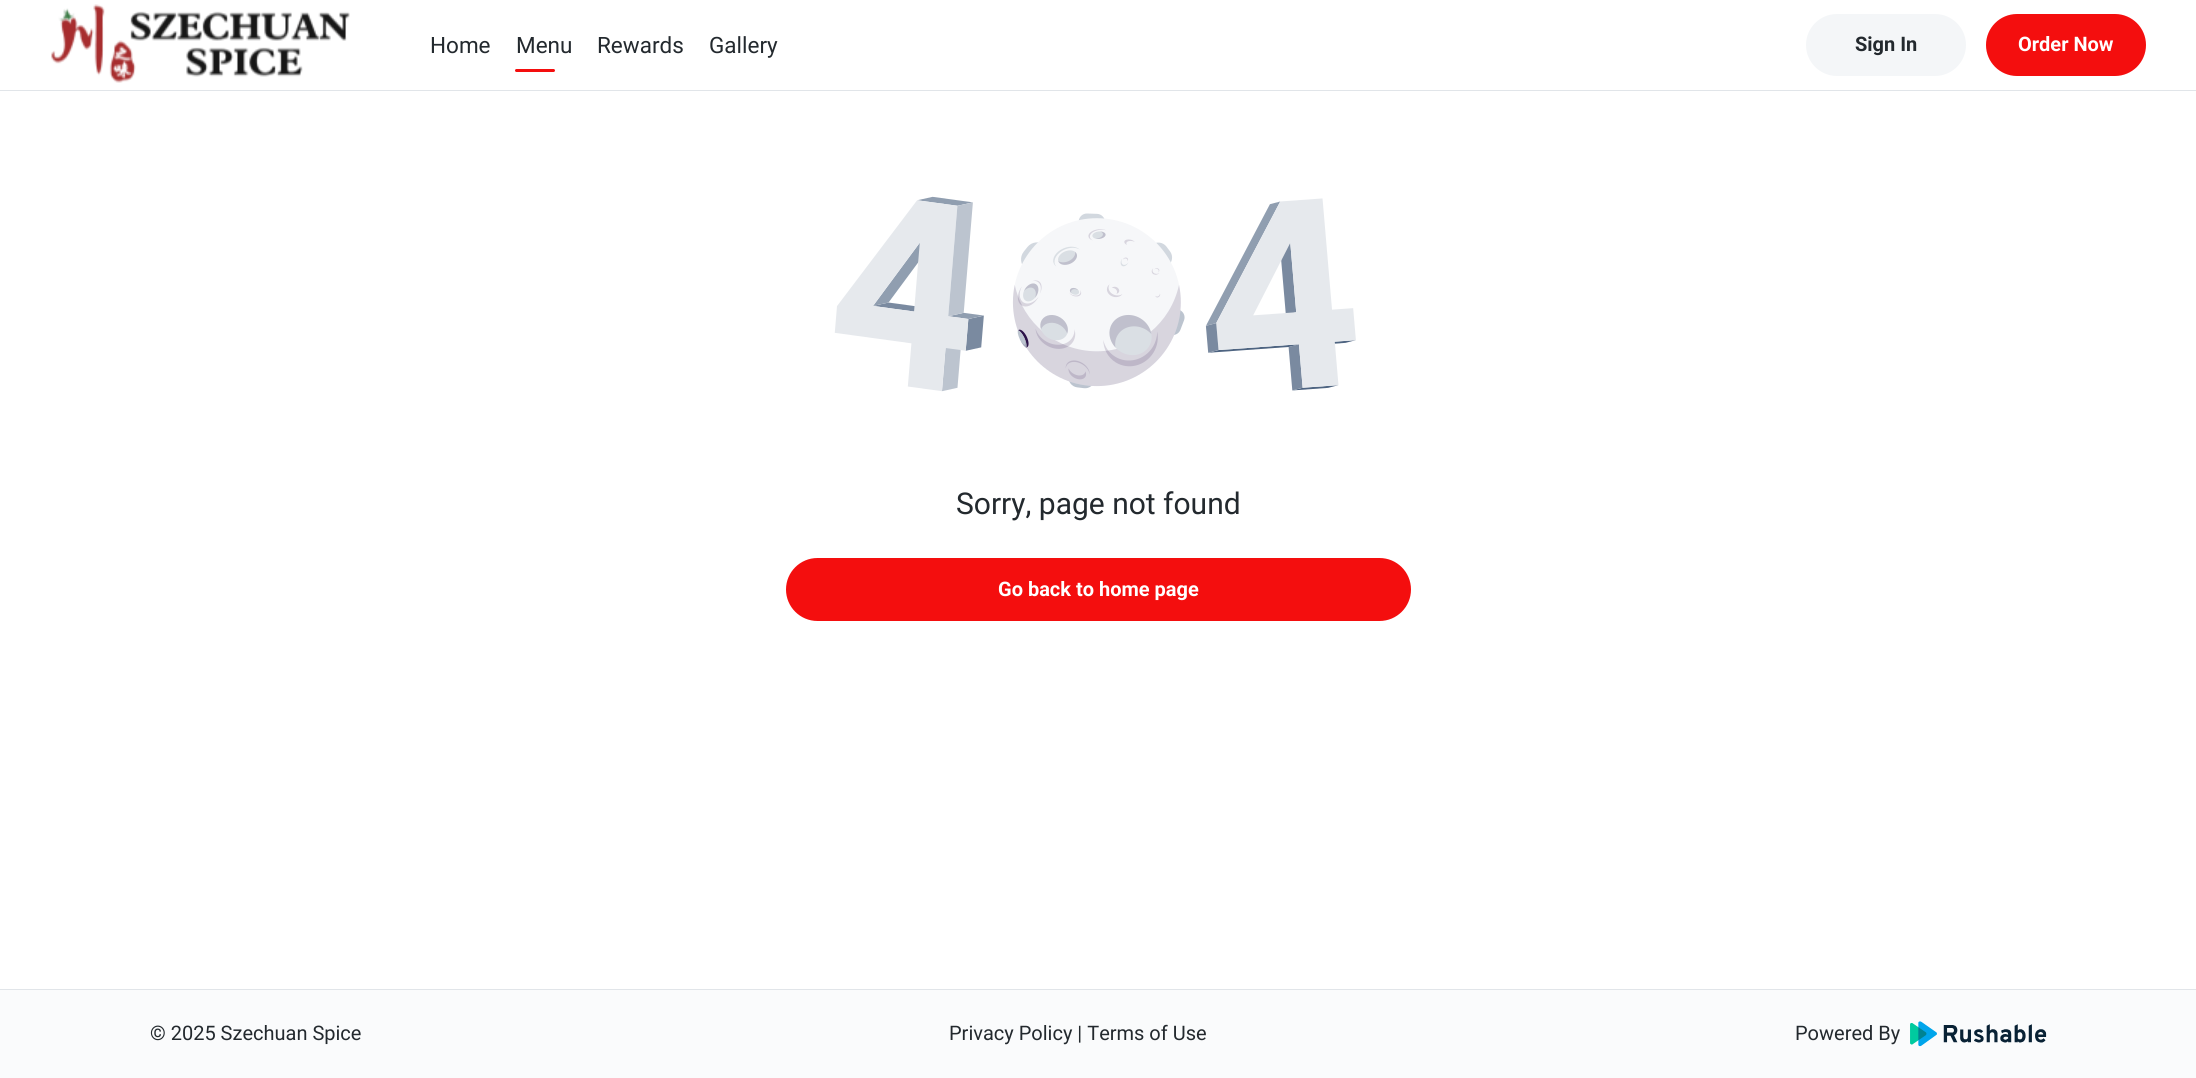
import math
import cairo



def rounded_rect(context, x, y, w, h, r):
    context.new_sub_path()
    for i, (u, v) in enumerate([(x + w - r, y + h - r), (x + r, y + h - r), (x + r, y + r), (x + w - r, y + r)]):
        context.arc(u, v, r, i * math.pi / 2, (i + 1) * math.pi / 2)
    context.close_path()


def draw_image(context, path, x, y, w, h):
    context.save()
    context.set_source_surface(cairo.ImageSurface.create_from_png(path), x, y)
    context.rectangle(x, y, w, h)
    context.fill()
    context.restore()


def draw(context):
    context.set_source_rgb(1, 1, 1)
    context.paint()
    context.set_source_rgb(225 / 255, 229 / 255, 233 / 255)
    context.rectangle(0, 90, 2196, 1)
    context.fill()
    draw_image(context, "images/1.png", 51, 4, 299, 79)
    context.set_source_rgb(244 / 255, 14 / 255, 14 / 255)
    rounded_rect(context, 515, 69, 40, 3, 1.5)
    context.fill()
    context.set_source_rgb(244 / 255, 246 / 255, 248 / 255)
    rounded_rect(context, 1807.5, 15.5, 157, 59, 29.5)
    context.fill_preserve()
    context.set_line_width(3)
    context.stroke()
    context.set_source_rgb(244 / 255, 14 / 255, 14 / 255)
    rounded_rect(context, 1987.5, 15.5, 157, 59, 29.5)
    context.fill_preserve()
    context.stroke()
    draw_image(context, "images/2.png", 834, 196, 522, 196)
    rounded_rect(context, 787.5, 559.5, 622, 60, 30)
    context.fill_preserve()
    context.stroke()
    context.set_source_rgb(250 / 255, 251 / 255, 252 / 255)
    context.rectangle(0, 990, 2196, 88)
    context.fill()
    context.set_source_rgb(225 / 255, 229 / 255, 233 / 255)
    context.rectangle(0, 989, 2196, 1)
    context.fill()
    draw_image(context, "images/3.png", 1910, 1021, 137, 26)
    context.select_font_face("Roboto")
    context.set_font_size(22.5)
    context.set_source_rgb(35 / 255, 41 / 255, 46 / 255)
    context.move_to(430, 53)
    context.show_text("Home")
    context.move_to(516, 53)
    context.show_text("Menu")
    context.move_to(597, 53)
    context.show_text("Rewards")
    context.move_to(709, 53)
    context.show_text("Gallery")
    context.select_font_face("Roboto", cairo.FontSlant.NORMAL, cairo.FontWeight.BOLD)
    context.set_font_size(20)
    context.move_to(1855, 51)
    context.show_text("Sign In")
    context.set_source_rgb(1, 1, 1)
    context.move_to(2018, 51)
    context.show_text("Order Now")
    context.select_font_face("Roboto")
    context.set_font_size(30)
    context.set_source_rgb(35 / 255, 41 / 255, 46 / 255)
    context.move_to(956, 514)
    context.show_text("Sorry, page not found")
    context.select_font_face("Roboto", cairo.FontSlant.NORMAL, cairo.FontWeight.BOLD)
    context.set_font_size(20)
    context.set_source_rgb(1, 1, 1)
    context.move_to(998, 596)
    context.show_text("Go back to home page")
    context.select_font_face("Roboto")
    context.set_source_rgb(35 / 255, 41 / 255, 46 / 255)
    context.move_to(150, 1040)
    context.show_text("© 2025 Szechuan Spice")
    context.move_to(949, 1040)
    context.show_text("Privacy Policy | Terms of Use")
    context.move_to(1795, 1040)
    context.show_text("Powered By")


surface = cairo.ImageSurface(cairo.Format.RGB24, 2196, 1078)
context = cairo.Context(surface)
options = cairo.FontOptions()
options.set_hint_metrics(cairo.HintMetrics.OFF)
options.set_hint_style(cairo.HintStyle.NONE)
context.set_font_options(options)
context.set_miter_limit(4)
draw(context)
surface.write_to_png("out.png")
